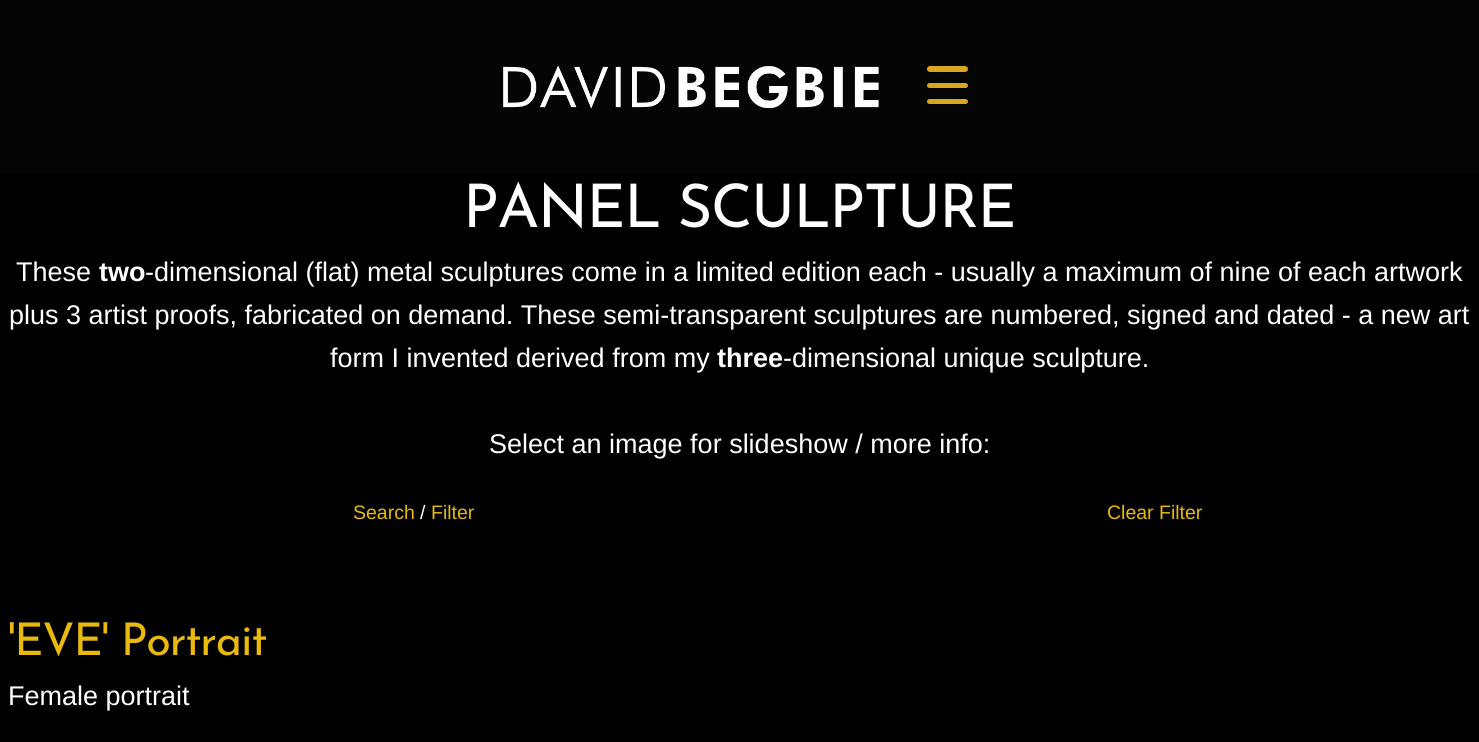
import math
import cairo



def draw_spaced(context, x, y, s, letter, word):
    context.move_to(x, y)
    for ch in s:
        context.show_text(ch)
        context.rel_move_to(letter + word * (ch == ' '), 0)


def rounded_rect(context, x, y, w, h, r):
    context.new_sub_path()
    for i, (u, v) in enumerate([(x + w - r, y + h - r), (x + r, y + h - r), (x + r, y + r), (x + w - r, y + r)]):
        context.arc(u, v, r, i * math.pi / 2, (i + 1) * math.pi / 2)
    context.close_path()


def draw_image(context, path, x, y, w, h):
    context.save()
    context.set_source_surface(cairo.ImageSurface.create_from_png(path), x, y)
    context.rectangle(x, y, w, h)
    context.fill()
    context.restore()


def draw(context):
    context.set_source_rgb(0, 0, 0)
    context.paint()
    context.set_source_rgb(5 / 255, 5 / 255, 5 / 255)
    context.rectangle(0, 0, 1479, 173)
    context.fill()
    draw_image(context, "images/1.png", 503, 65, 376, 44)
    context.set_source_rgb(218 / 255, 165 / 255, 32 / 255)
    rounded_rect(context, 927, 66, 41, 6, 3)
    context.fill()
    rounded_rect(context, 927, 83, 41, 5, 2.5)
    context.fill()
    rounded_rect(context, 927, 99, 41, 5, 2.5)
    context.fill()
    context.select_font_face("Josefin Sans")
    context.set_font_size(60)
    context.set_source_rgb(1, 1, 1)
    draw_spaced(context, 463, 227, "PANEL SCULPTURE", -1.5, 0)
    context.select_font_face("Liberation Sans")
    context.set_font_size(27)
    context.move_to(16, 281)
    context.show_text("These")
    context.select_font_face("Liberation Sans", cairo.FontSlant.NORMAL, cairo.FontWeight.BOLD)
    context.move_to(99, 281)
    context.show_text("two")
    context.select_font_face("Liberation Sans")
    context.move_to(145, 281)
    context.show_text("-dimensional (flat) metal sculptures come in a limited edition each - usually a maximum of nine of each artwork")
    context.move_to(9, 324)
    context.show_text("plus 3 artist proofs, fabricated on demand. These semi-transparent sculptures are numbered, signed and dated - a new art")
    context.move_to(330, 367)
    context.show_text("form I invented derived from my")
    context.select_font_face("Liberation Sans", cairo.FontSlant.NORMAL, cairo.FontWeight.BOLD)
    context.move_to(717, 367)
    context.show_text("three")
    context.select_font_face("Liberation Sans")
    context.move_to(783, 367)
    context.show_text("-dimensional unique sculpture.")
    context.move_to(489, 453)
    context.show_text("Select an image for slideshow / more info:")
    context.set_font_size(19.5)
    context.set_source_rgb(233 / 255, 185 / 255, 14 / 255)
    context.move_to(353, 519)
    context.show_text("Search")
    context.set_source_rgb(1, 1, 1)
    context.move_to(420, 519)
    context.show_text("/")
    context.set_source_rgb(233 / 255, 185 / 255, 14 / 255)
    context.move_to(431, 519)
    context.show_text("Filter")
    context.move_to(1107, 519)
    context.show_text("Clear Filter")
    context.select_font_face("Josefin Sans")
    context.set_font_size(45)
    draw_spaced(context, 8, 655, "'EVE' Portrait", -1.25, 0)
    context.select_font_face("Liberation Sans")
    context.set_font_size(27)
    context.set_source_rgb(1, 1, 1)
    context.move_to(8, 705)
    context.show_text("Female portrait")


surface = cairo.ImageSurface(cairo.Format.RGB24, 1479, 742)
context = cairo.Context(surface)
options = cairo.FontOptions()
options.set_hint_metrics(cairo.HintMetrics.OFF)
options.set_hint_style(cairo.HintStyle.NONE)
context.set_font_options(options)
context.set_miter_limit(4)
draw(context)
surface.write_to_png("out.png")
